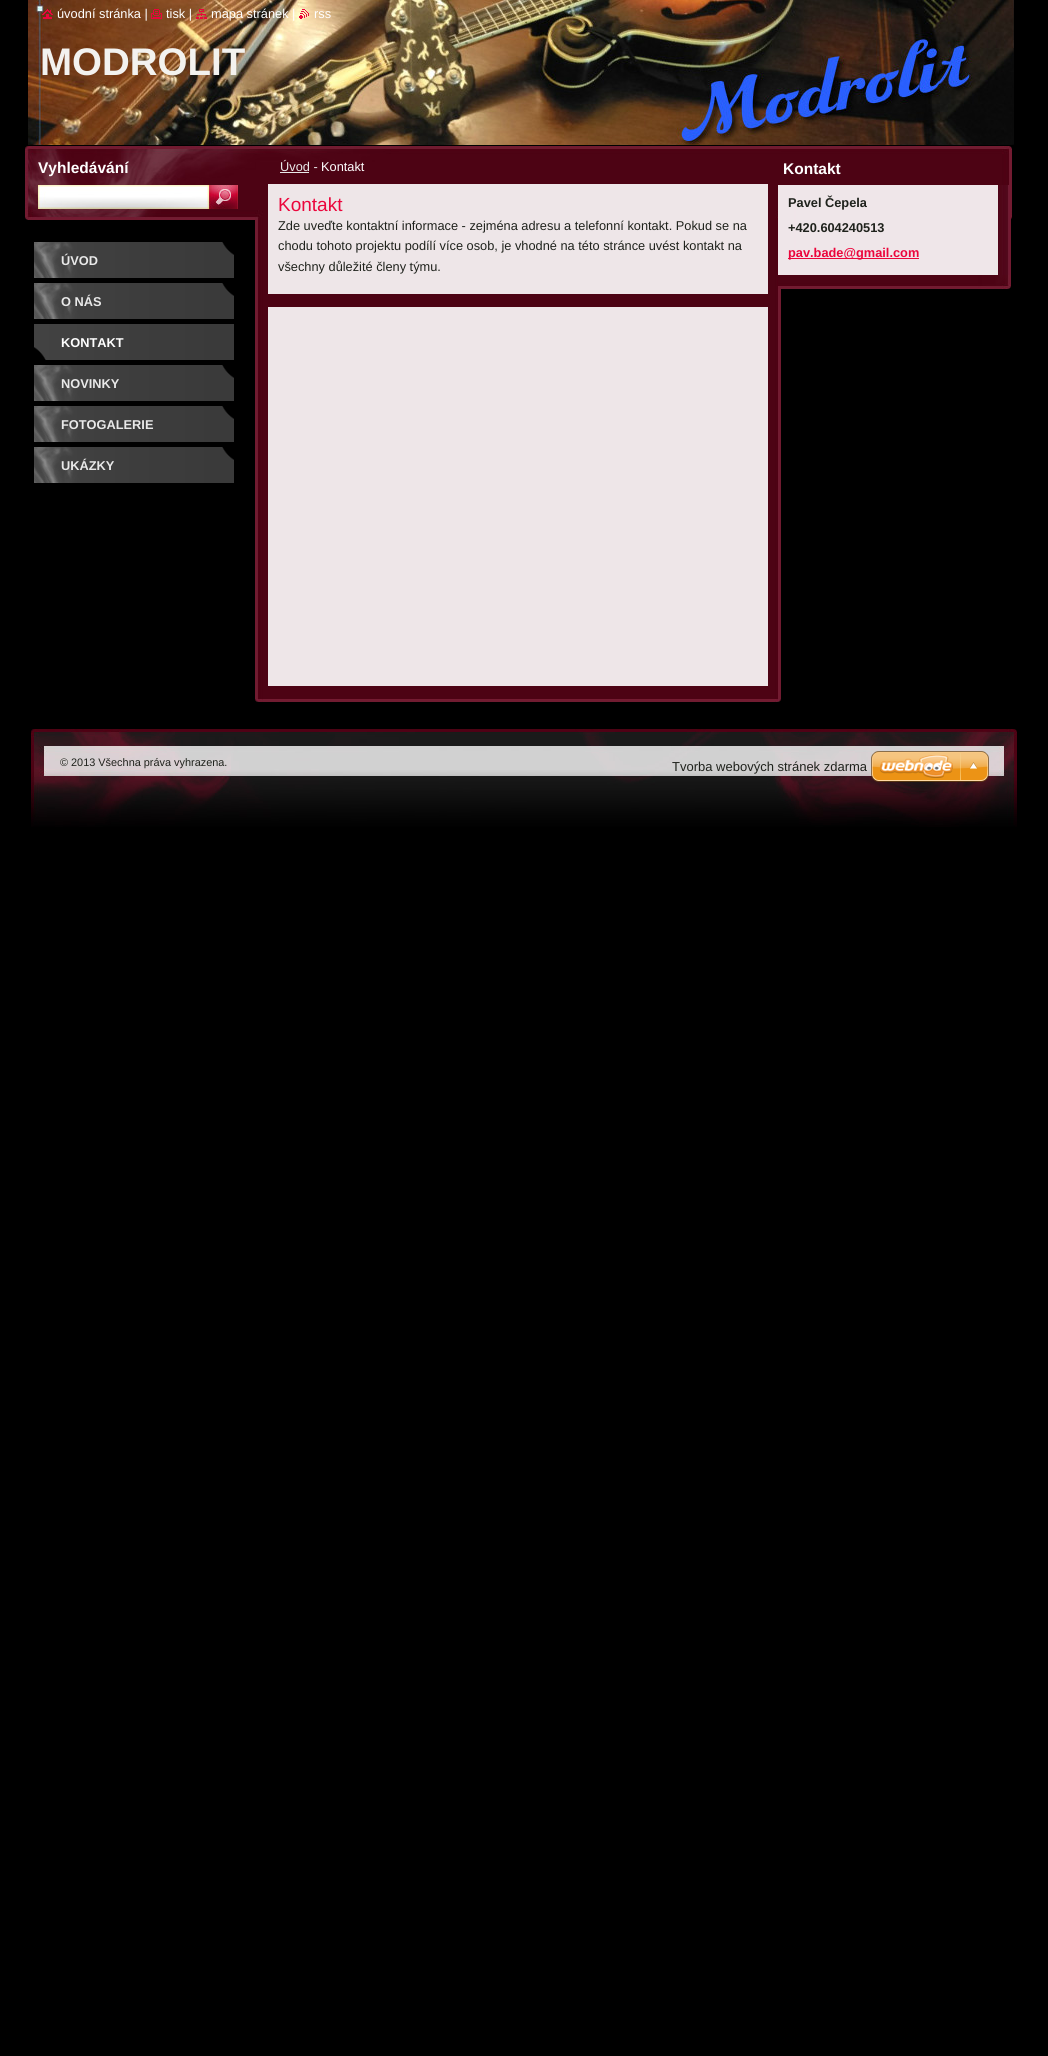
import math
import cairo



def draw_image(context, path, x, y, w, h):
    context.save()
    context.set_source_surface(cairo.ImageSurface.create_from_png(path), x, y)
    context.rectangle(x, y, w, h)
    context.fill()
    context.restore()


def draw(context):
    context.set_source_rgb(0, 0, 0)
    context.paint()
    draw_image(context, "images/5.png", 28, 0, 986, 145)
    draw_image(context, "images/1.png", 42, 9, 11, 10)
    draw_image(context, "images/2.png", 151, 9, 11, 10)
    draw_image(context, "images/3.png", 196, 9, 11, 10)
    draw_image(context, "images/4.png", 299, 9, 10, 10)
    draw_image(context, "images/6.png", 25, 146, 987, 74)
    draw_image(context, "images/7.png", 38, 185, 171, 24)
    draw_image(context, "images/8.png", 209, 185, 29, 24)
    draw_image(context, "images/9.png", 255, 218, 526, 481)
    draw_image(context, "images/10.png", 255, 146, 526, 72)
    context.set_source_rgb(233 / 255, 233 / 255, 233 / 255)
    context.rectangle(280, 172, 29, 1)
    context.fill()
    context.set_source_rgb(238 / 255, 230 / 255, 232 / 255)
    context.rectangle(268, 184, 500, 110)
    context.fill()
    context.rectangle(268, 307, 500, 379)
    context.fill()
    draw_image(context, "images/11.png", 255, 699, 526, 3)
    draw_image(context, "images/12.png", 778, 185, 233, 90)
    context.set_source_rgb(235 / 255, 6 / 255, 60 / 255)
    context.rectangle(788, 258, 131, 1)
    context.fill()
    draw_image(context, "images/13.png", 778, 275, 233, 14)
    draw_image(context, "images/14.png", 34, 242, 200, 36)
    draw_image(context, "images/14.png", 34, 283, 200, 36)
    draw_image(context, "images/15.png", 34, 324, 200, 36)
    draw_image(context, "images/14.png", 34, 365, 200, 36)
    draw_image(context, "images/14.png", 34, 406, 200, 36)
    draw_image(context, "images/14.png", 34, 447, 200, 36)
    draw_image(context, "images/16.png", 31, 729, 986, 98)
    draw_image(context, "images/17.png", 871, 751, 118, 31)
    context.select_font_face("Liberation Sans")
    context.set_font_size(12.8)
    context.set_source_rgb(1, 1, 1)
    context.move_to(57, 18)
    context.show_text("úvodní stránka |")
    context.move_to(166, 18)
    context.show_text("tisk |")
    context.move_to(211, 18)
    context.show_text("mapa stránek |")
    context.move_to(314, 18)
    context.show_text("rss")
    context.select_font_face("Liberation Sans", cairo.FontSlant.NORMAL, cairo.FontWeight.BOLD)
    context.set_font_size(38.5)
    context.set_source_rgb(243 / 255, 242 / 255, 239 / 255)
    context.move_to(40, 75)
    context.show_text("MODROLIT")
    context.set_font_size(15.5)
    context.set_source_rgb(1, 1, 1)
    context.move_to(38, 173)
    context.show_text("Vyhledávání")
    context.select_font_face("Liberation Sans")
    context.set_font_size(12.8)
    context.set_source_rgb(233 / 255, 233 / 255, 233 / 255)
    context.move_to(280, 171)
    context.show_text("Úvod -")
    context.set_source_rgb(1, 1, 1)
    context.move_to(321, 171)
    context.show_text("Kontakt")
    context.set_font_size(19)
    context.set_source_rgb(235 / 255, 6 / 255, 60 / 255)
    context.move_to(278, 211)
    context.show_text("Kontakt")
    context.set_font_size(12.8)
    context.set_source_rgb(31 / 255, 34 / 255, 28 / 255)
    context.move_to(278, 230)
    context.show_text("Zde uveďte kontaktní informace - zejména adresu a telefonní kontakt. Pokud se na")
    context.move_to(278, 250)
    context.show_text("chodu tohoto projektu podílí více osob, je vhodné na této stránce uvést kontakt na")
    context.move_to(278, 271)
    context.show_text("všechny důležité členy týmu.")
    context.select_font_face("Liberation Sans", cairo.FontSlant.NORMAL, cairo.FontWeight.BOLD)
    context.set_font_size(15.5)
    context.set_source_rgb(1, 1, 1)
    context.move_to(783, 174)
    context.show_text("Kontakt")
    context.set_font_size(12.8)
    context.set_source_rgb(31 / 255, 34 / 255, 28 / 255)
    context.move_to(788, 207)
    context.show_text("Pavel Čepela")
    context.move_to(788, 232)
    context.show_text("+420.604240513")
    context.set_source_rgb(235 / 255, 6 / 255, 60 / 255)
    context.move_to(788, 257)
    context.show_text("pav.bade@gmail.com")
    context.set_source_rgb(233 / 255, 233 / 255, 233 / 255)
    context.move_to(61, 265)
    context.show_text("ÚVOD")
    context.move_to(61, 306)
    context.show_text("O NÁS")
    context.set_source_rgb(1, 1, 1)
    context.move_to(61, 347)
    context.show_text("KONTAKT")
    context.set_source_rgb(233 / 255, 233 / 255, 233 / 255)
    context.move_to(61, 388)
    context.show_text("NOVINKY")
    context.move_to(61, 429)
    context.show_text("FOTOGALERIE")
    context.move_to(61, 470)
    context.show_text("UKÁZKY")
    context.save()
    context.rectangle(60, 755, 450, 16)
    context.clip()
    context.select_font_face("Liberation Sans")
    context.set_font_size(10.9)
    context.set_source_rgb(31 / 255, 34 / 255, 28 / 255)
    context.move_to(60, 766)
    context.show_text("© 2013 Všechna práva vyhrazena.")
    context.restore()
    context.select_font_face("Liberation Sans")
    context.set_font_size(13)
    context.set_source_rgb(31 / 255, 34 / 255, 28 / 255)
    context.move_to(672, 771)
    context.show_text("Tvorba webových stránek zdarma")


surface = cairo.ImageSurface(cairo.Format.RGB24, 1048, 2056)
context = cairo.Context(surface)
options = cairo.FontOptions()
options.set_hint_metrics(cairo.HintMetrics.OFF)
options.set_hint_style(cairo.HintStyle.NONE)
context.set_font_options(options)
context.set_miter_limit(4)
draw(context)
surface.write_to_png("out.png")
